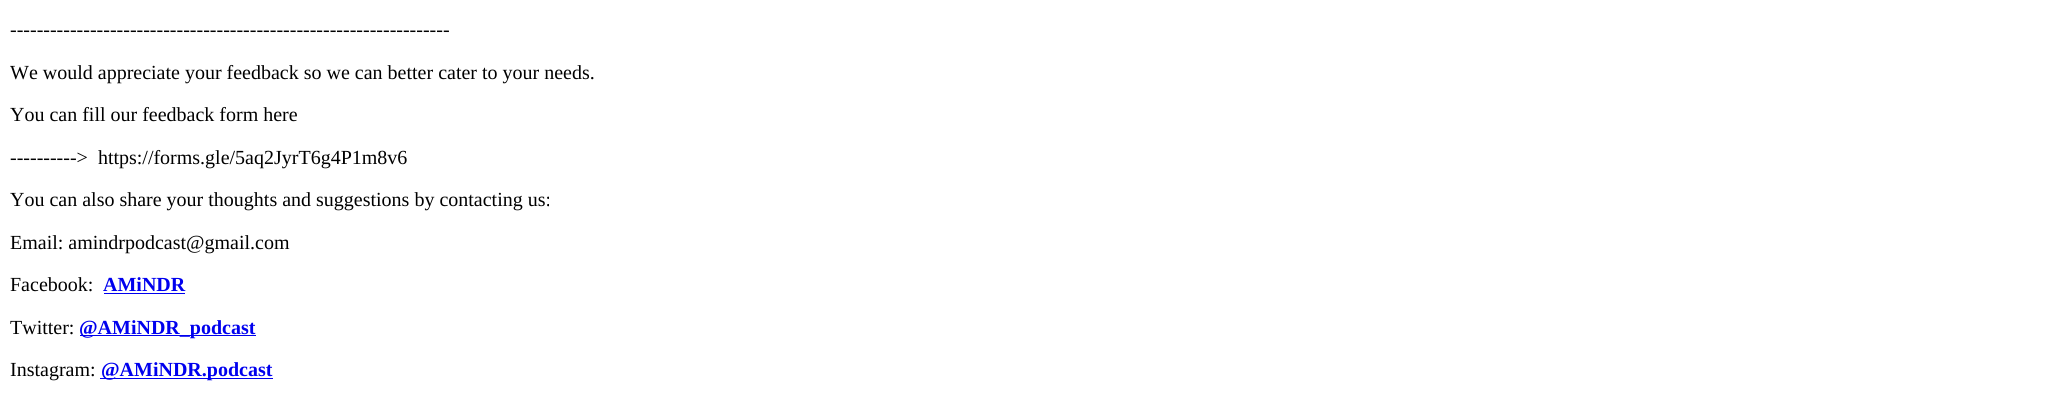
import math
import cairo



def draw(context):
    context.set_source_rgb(1, 1, 1)
    context.paint()
    context.set_source_rgb(0, 0, 238 / 255)
    context.rectangle(104, 293, 81, 1)
    context.fill()
    context.rectangle(80, 335, 176, 1)
    context.fill()
    context.rectangle(100, 378, 173, 1)
    context.fill()
    context.select_font_face("Liberation Serif")
    context.set_font_size(20)
    context.set_source_rgb(0, 0, 0)
    context.move_to(10, 36)
    context.show_text("------------------------------------------------------------------")
    context.move_to(10, 79)
    context.show_text("We would appreciate your feedback so we can better cater to your needs.")
    context.move_to(10, 121)
    context.show_text("You can fill our feedback form here")
    context.move_to(10, 164)
    context.show_text("---------->  https://forms.gle/5aq2JyrT6g4P1m8v6")
    context.move_to(10, 206)
    context.show_text("You can also share your thoughts and suggestions by contacting us:")
    context.move_to(10, 249)
    context.show_text("Email: amindrpodcast@gmail.com")
    context.move_to(10, 291)
    context.show_text("Facebook:")
    context.select_font_face("Liberation Serif", cairo.FontSlant.NORMAL, cairo.FontWeight.BOLD)
    context.set_source_rgb(0, 0, 238 / 255)
    context.move_to(103, 291)
    context.show_text("AMiNDR")
    context.select_font_face("Liberation Serif")
    context.set_source_rgb(0, 0, 0)
    context.move_to(10, 334)
    context.show_text("Twitter:")
    context.select_font_face("Liberation Serif", cairo.FontSlant.NORMAL, cairo.FontWeight.BOLD)
    context.set_source_rgb(0, 0, 238 / 255)
    context.move_to(79, 334)
    context.show_text("@AMiNDR_podcast")
    context.select_font_face("Liberation Serif")
    context.set_source_rgb(0, 0, 0)
    context.move_to(10, 376)
    context.show_text("Instagram:")
    context.select_font_face("Liberation Serif", cairo.FontSlant.NORMAL, cairo.FontWeight.BOLD)
    context.set_source_rgb(0, 0, 238 / 255)
    context.move_to(101, 376)
    context.show_text("@AMiNDR.podcast")


surface = cairo.ImageSurface(cairo.Format.RGB24, 2063, 398)
context = cairo.Context(surface)
options = cairo.FontOptions()
options.set_hint_metrics(cairo.HintMetrics.OFF)
options.set_hint_style(cairo.HintStyle.NONE)
context.set_font_options(options)
context.set_miter_limit(4)
draw(context)
surface.write_to_png("out.png")
